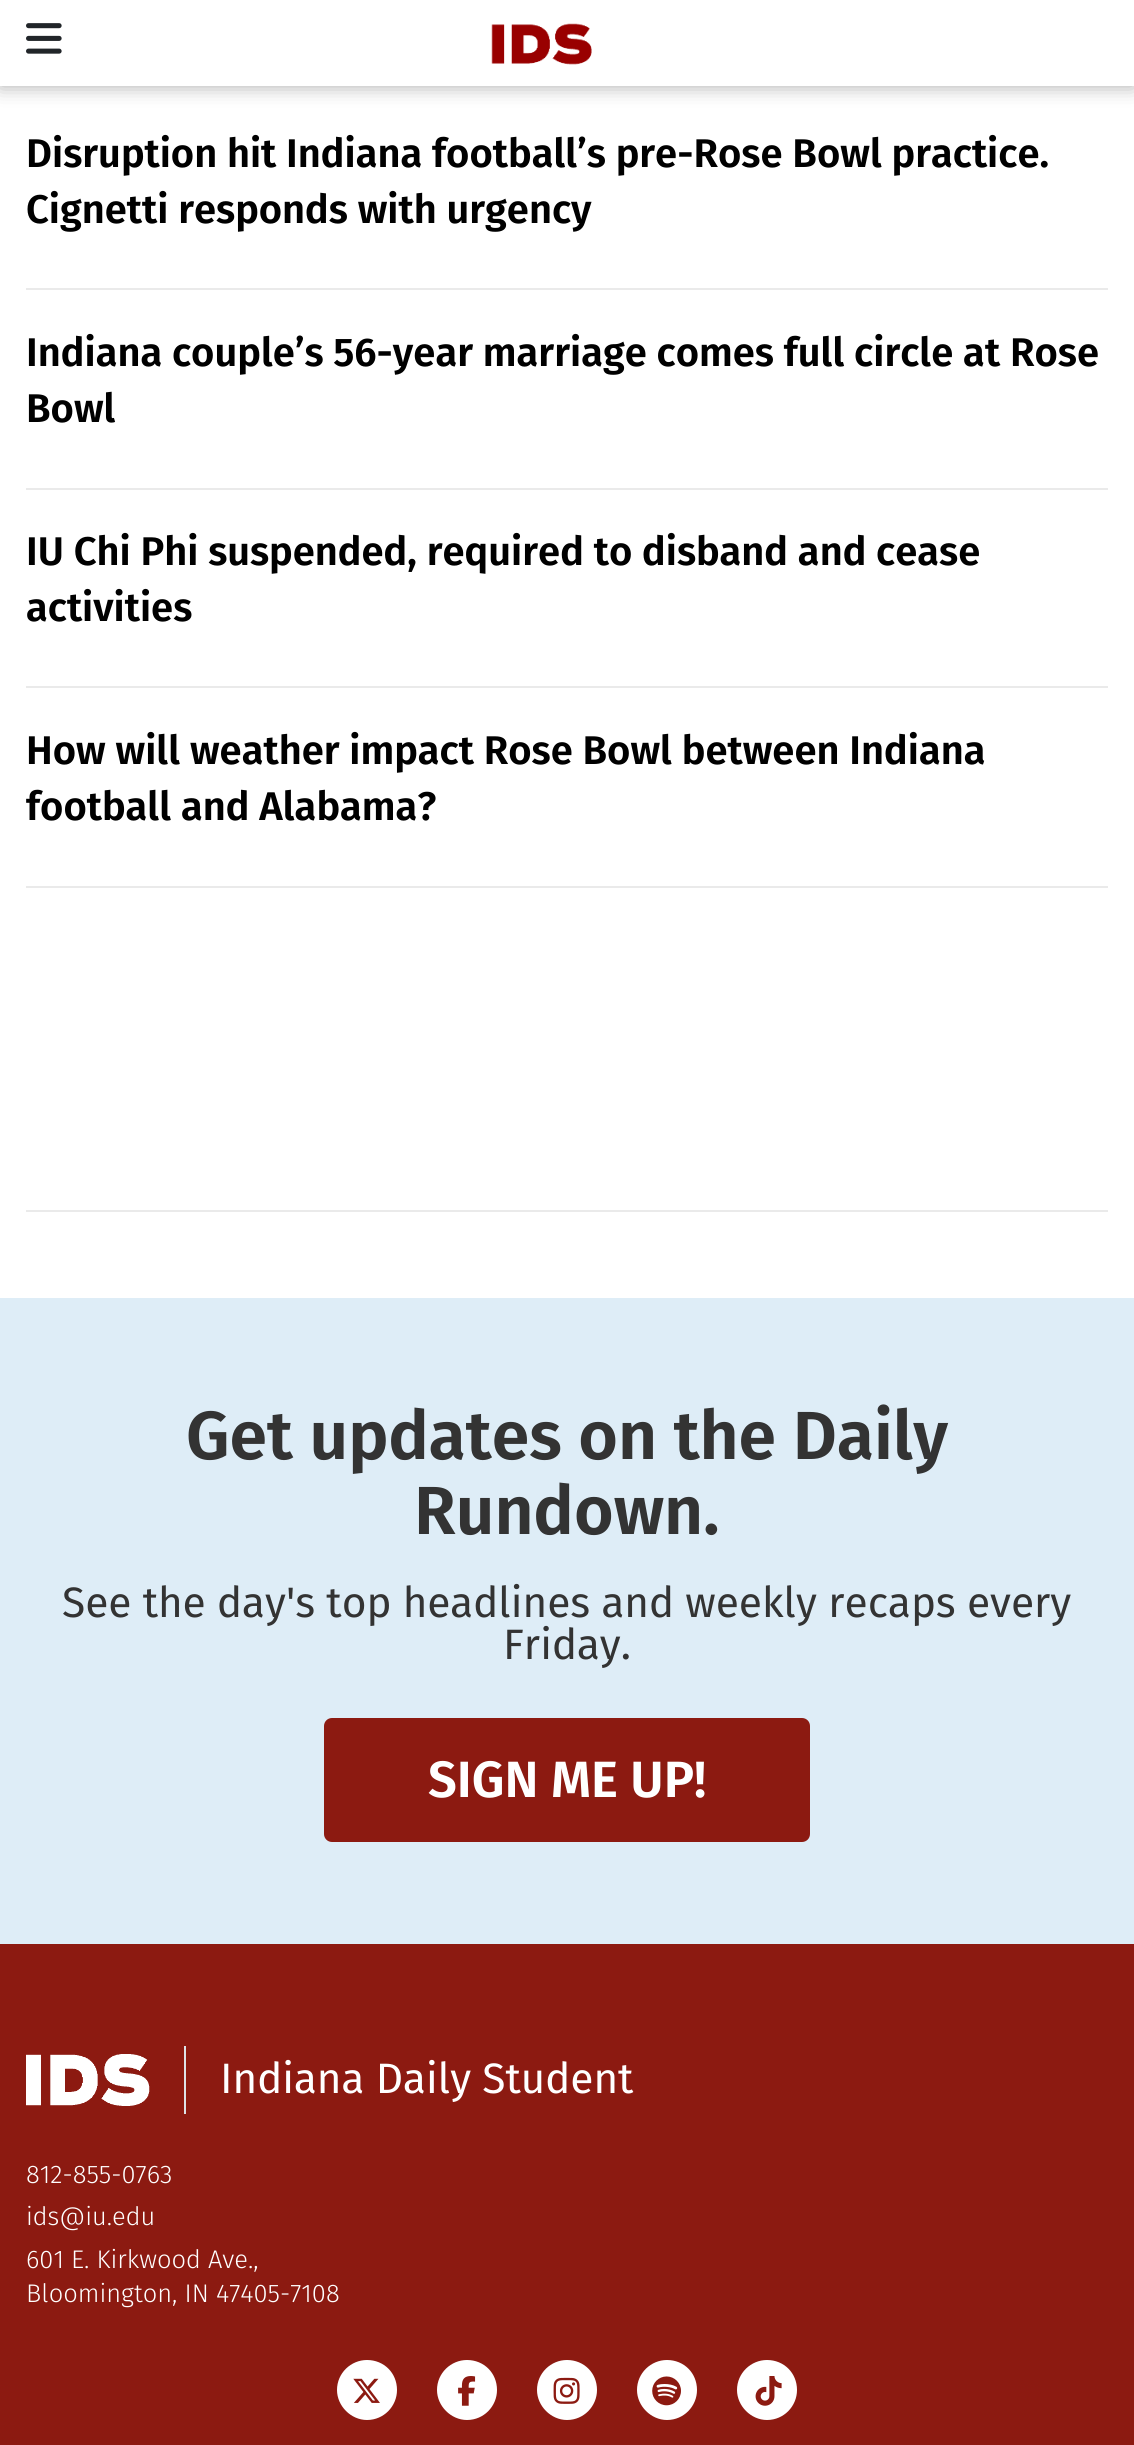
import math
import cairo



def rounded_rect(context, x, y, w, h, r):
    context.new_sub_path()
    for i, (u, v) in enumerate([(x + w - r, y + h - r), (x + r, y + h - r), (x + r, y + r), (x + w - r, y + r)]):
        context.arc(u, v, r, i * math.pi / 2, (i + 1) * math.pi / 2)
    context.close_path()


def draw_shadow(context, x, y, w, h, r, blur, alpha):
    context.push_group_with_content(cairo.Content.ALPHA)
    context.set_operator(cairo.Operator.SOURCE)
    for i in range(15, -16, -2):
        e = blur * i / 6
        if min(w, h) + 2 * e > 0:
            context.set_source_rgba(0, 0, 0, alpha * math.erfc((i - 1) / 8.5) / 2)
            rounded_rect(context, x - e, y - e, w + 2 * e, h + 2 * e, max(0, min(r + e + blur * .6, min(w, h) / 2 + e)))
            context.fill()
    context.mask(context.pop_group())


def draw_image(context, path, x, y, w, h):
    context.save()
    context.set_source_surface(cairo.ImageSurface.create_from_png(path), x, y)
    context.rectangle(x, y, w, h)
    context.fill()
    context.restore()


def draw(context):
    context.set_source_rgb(1, 1, 1)
    context.paint()
    context.set_source_rgb(0, 0, 0)
    draw_shadow(context, 0, 0, 1134, 86, 0, 10, 0.33)
    context.set_source_rgb(1, 1, 1)
    context.rectangle(0, 0, 1134, 86)
    context.fill()
    draw_image(context, "images/1.png", 26, 23, 36, 31)
    draw_image(context, "images/2.png", 491, 23, 101, 42)
    context.set_source_rgb(234 / 255, 234 / 255, 234 / 255)
    context.rectangle(26, 288, 1082, 2)
    context.fill()
    context.rectangle(26, 488, 1082, 2)
    context.fill()
    context.rectangle(26, 686, 1082, 2)
    context.fill()
    context.rectangle(26, 886, 1082, 2)
    context.fill()
    context.rectangle(26, 1210, 1082, 2)
    context.fill()
    context.set_source_rgb(222 / 255, 237 / 255, 247 / 255)
    context.rectangle(0, 1298, 1134, 646)
    context.fill()
    context.set_source_rgb(140 / 255, 26 / 255, 17 / 255)
    rounded_rect(context, 325, 1719, 484, 122, 7)
    context.fill_preserve()
    context.stroke()
    context.rectangle(0, 1944, 1134, 501)
    context.fill()
    context.set_source_rgb(222 / 255, 226 / 255, 230 / 255)
    context.rectangle(184, 2046, 2, 68)
    context.fill()
    draw_image(context, "images/3.png", 26, 2054, 124, 52)
    context.set_source_rgb(1, 1, 1)
    context.new_path()
    context.move_to(367, 2420)
    context.curve_to(384, 2420, 397, 2406, 397, 2390)
    context.curve_to(397, 2373, 384, 2360, 367, 2360)
    context.curve_to(351, 2360, 337, 2373, 337, 2390)
    context.curve_to(337, 2406, 351, 2420, 367, 2420)
    context.close_path()
    context.fill()
    draw_image(context, "images/4.png", 353, 2378, 27, 25)
    context.new_path()
    context.move_to(467, 2420)
    context.curve_to(484, 2420, 497, 2406, 497, 2390)
    context.curve_to(497, 2373, 484, 2360, 467, 2360)
    context.curve_to(451, 2360, 437, 2373, 437, 2390)
    context.curve_to(437, 2406, 451, 2420, 467, 2420)
    context.close_path()
    context.fill()
    draw_image(context, "images/5.png", 458, 2376, 18, 30)
    context.new_path()
    context.move_to(567, 2420)
    context.curve_to(584, 2420, 597, 2406, 597, 2390)
    context.curve_to(597, 2373, 584, 2360, 567, 2360)
    context.curve_to(551, 2360, 537, 2373, 537, 2390)
    context.curve_to(537, 2406, 551, 2420, 567, 2420)
    context.close_path()
    context.fill()
    draw_image(context, "images/6.png", 553, 2377, 27, 27)
    context.new_path()
    context.move_to(667, 2420)
    context.curve_to(684, 2420, 697, 2406, 697, 2390)
    context.curve_to(697, 2373, 684, 2360, 667, 2360)
    context.curve_to(651, 2360, 637, 2373, 637, 2390)
    context.curve_to(637, 2406, 651, 2420, 667, 2420)
    context.close_path()
    context.fill()
    draw_image(context, "images/7.png", 652, 2376, 29, 30)
    context.new_path()
    context.move_to(767, 2420)
    context.curve_to(784, 2420, 797, 2406, 797, 2390)
    context.curve_to(797, 2373, 784, 2360, 767, 2360)
    context.curve_to(751, 2360, 737, 2373, 737, 2390)
    context.curve_to(737, 2406, 751, 2420, 767, 2420)
    context.close_path()
    context.fill()
    draw_image(context, "images/8.png", 755, 2376, 27, 30)
    context.select_font_face("Fira Sans SemiBold")
    context.set_font_size(40)
    context.set_source_rgb(0, 0, 0)
    context.move_to(26, 167)
    context.show_text("Disruption hit Indiana football’s pre-Rose Bowl practice.")
    context.move_to(26, 223)
    context.show_text("Cignetti responds with urgency")
    context.move_to(26, 366)
    context.show_text("Indiana couple’s 56-year marriage comes full circle at Rose")
    context.move_to(26, 422)
    context.show_text("Bowl")
    context.move_to(26, 565)
    context.show_text("IU Chi Phi suspended, required to disband and cease")
    context.move_to(26, 621)
    context.show_text("activities")
    context.move_to(26, 764)
    context.show_text("How will weather impact Rose Bowl between Indiana")
    context.move_to(26, 820)
    context.show_text("football and Alabama?")
    context.set_font_size(68)
    context.set_source_rgb(51 / 255, 51 / 255, 51 / 255)
    context.move_to(186, 1459)
    context.show_text("Get updates on the Daily")
    context.move_to(414, 1534)
    context.show_text("Rundown.")
    context.select_font_face("Fira Sans")
    context.set_font_size(42.5)
    context.move_to(62, 1617)
    context.show_text("See the day's top headlines and weekly recaps every")
    context.move_to(503, 1659)
    context.show_text("Friday.")
    context.select_font_face("Fira Sans SemiBold")
    context.set_font_size(51)
    context.set_source_rgb(1, 1, 1)
    context.move_to(428, 1797)
    context.show_text("SIGN ME UP!")
    context.select_font_face("Fira Sans")
    context.set_font_size(42.5)
    context.move_to(220, 2093)
    context.show_text("Indiana Daily Student")
    context.select_font_face("Fira Sans Light")
    context.set_font_size(25.5)
    context.move_to(26, 2183)
    context.show_text("812-855-0763")
    context.move_to(26, 2225)
    context.show_text("ids@iu.edu")
    context.move_to(26, 2268)
    context.show_text("601 E. Kirkwood Ave.,")
    context.move_to(26, 2302)
    context.show_text("Bloomington, IN 47405-7108")


surface = cairo.ImageSurface(cairo.Format.RGB24, 1134, 2445)
context = cairo.Context(surface)
options = cairo.FontOptions()
options.set_hint_metrics(cairo.HintMetrics.OFF)
options.set_hint_style(cairo.HintStyle.NONE)
context.set_font_options(options)
context.set_miter_limit(4)
draw(context)
surface.write_to_png("out.png")
